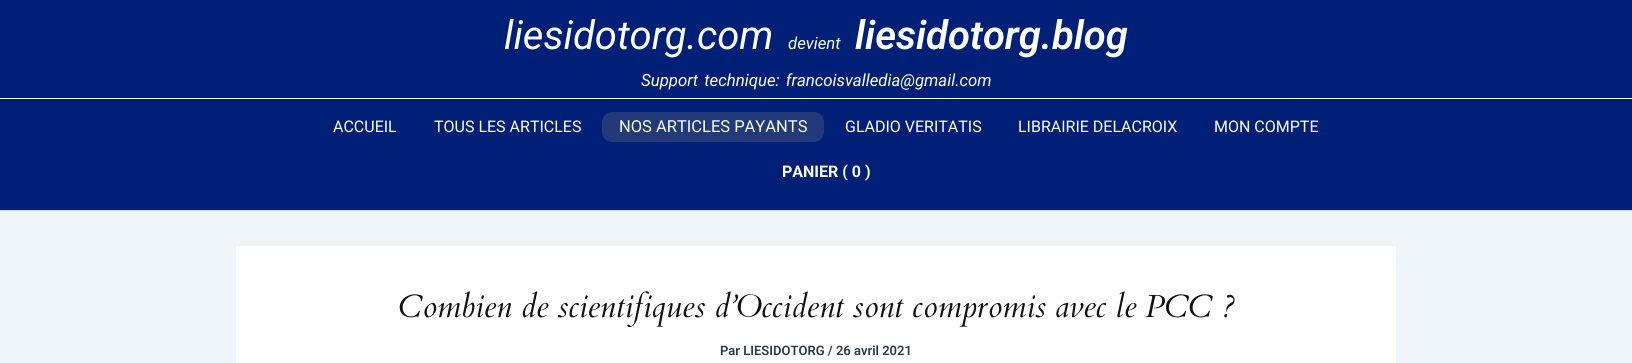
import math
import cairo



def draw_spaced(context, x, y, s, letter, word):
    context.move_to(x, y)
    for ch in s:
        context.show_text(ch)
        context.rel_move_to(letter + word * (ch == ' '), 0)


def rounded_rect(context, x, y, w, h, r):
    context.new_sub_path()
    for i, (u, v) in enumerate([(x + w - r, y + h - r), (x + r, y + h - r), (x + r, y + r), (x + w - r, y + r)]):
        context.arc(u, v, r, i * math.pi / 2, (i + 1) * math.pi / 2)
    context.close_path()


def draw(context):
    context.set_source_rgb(240 / 255, 245 / 255, 250 / 255)
    context.paint()
    context.set_source_rgb(0, 32 / 255, 120 / 255)
    context.rectangle(0, 0, 1632, 98)
    context.fill()
    context.set_source_rgb(1, 1, 1)
    context.rectangle(0, 98, 1632, 1)
    context.fill()
    context.set_source_rgb(0, 32 / 255, 120 / 255)
    context.rectangle(0, 99, 1632, 111)
    context.fill()
    context.set_source_rgb(209 / 255, 213 / 255, 219 / 255)
    context.rectangle(0, 210, 1632, 1)
    context.fill()
    context.set_source_rgb(34 / 255, 58 / 255, 122 / 255)
    rounded_rect(context, 602, 112, 222, 30, 10)
    context.fill()
    context.set_source_rgb(1, 1, 1)
    context.rectangle(236, 246, 1160, 117)
    context.fill()
    context.select_font_face("Roboto", cairo.FontSlant.ITALIC)
    context.set_font_size(40)
    context.move_to(504, 49)
    context.show_text("liesidotorg.com")
    context.set_font_size(16.8)
    context.move_to(788, 49)
    context.show_text("devient")
    context.select_font_face("Roboto SemiBold", cairo.FontSlant.ITALIC)
    context.set_font_size(40)
    context.move_to(855, 49)
    context.show_text("liesidotorg.blog")
    context.select_font_face("Roboto", cairo.FontSlant.ITALIC)
    context.set_font_size(16.8)
    draw_spaced(context, 641, 86, "Support technique: francoisvalledia@gmail.com", 0, 2)
    context.select_font_face("Roboto")
    context.set_font_size(16)
    context.move_to(333, 132)
    context.show_text("ACCUEIL")
    context.move_to(434, 132)
    context.show_text("TOUS LES ARTICLES")
    context.set_font_size(16.5)
    context.move_to(619, 132)
    context.show_text("NOS ARTICLES PAYANTS")
    context.set_font_size(16)
    context.move_to(845, 132)
    context.show_text("GLADIO VERITATIS")
    context.move_to(1018, 132)
    context.show_text("LIBRAIRIE DELACROIX")
    context.move_to(1214, 132)
    context.show_text("MON COMPTE")
    context.select_font_face("Roboto", cairo.FontSlant.NORMAL, cairo.FontWeight.BOLD)
    context.move_to(782, 177)
    context.show_text("PANIER ( 0 )")
    context.select_font_face("Cardo", cairo.FontSlant.ITALIC)
    context.set_font_size(32)
    context.set_source_rgb(17 / 255, 17 / 255, 17 / 255)
    context.move_to(398, 317)
    context.show_text("Combien de scientifiques d’Occident sont compromis avec le PCC ?")
    context.select_font_face("Roboto SemiBold")
    context.set_font_size(13)
    context.set_source_rgb(40 / 255, 58 / 255, 75 / 255)
    context.move_to(720, 355)
    context.show_text("Par LIESIDOTORG / 26 avril 2021")


surface = cairo.ImageSurface(cairo.Format.RGB24, 1632, 363)
context = cairo.Context(surface)
options = cairo.FontOptions()
options.set_hint_metrics(cairo.HintMetrics.OFF)
options.set_hint_style(cairo.HintStyle.NONE)
context.set_font_options(options)
context.set_miter_limit(4)
draw(context)
surface.write_to_png("out.png")
